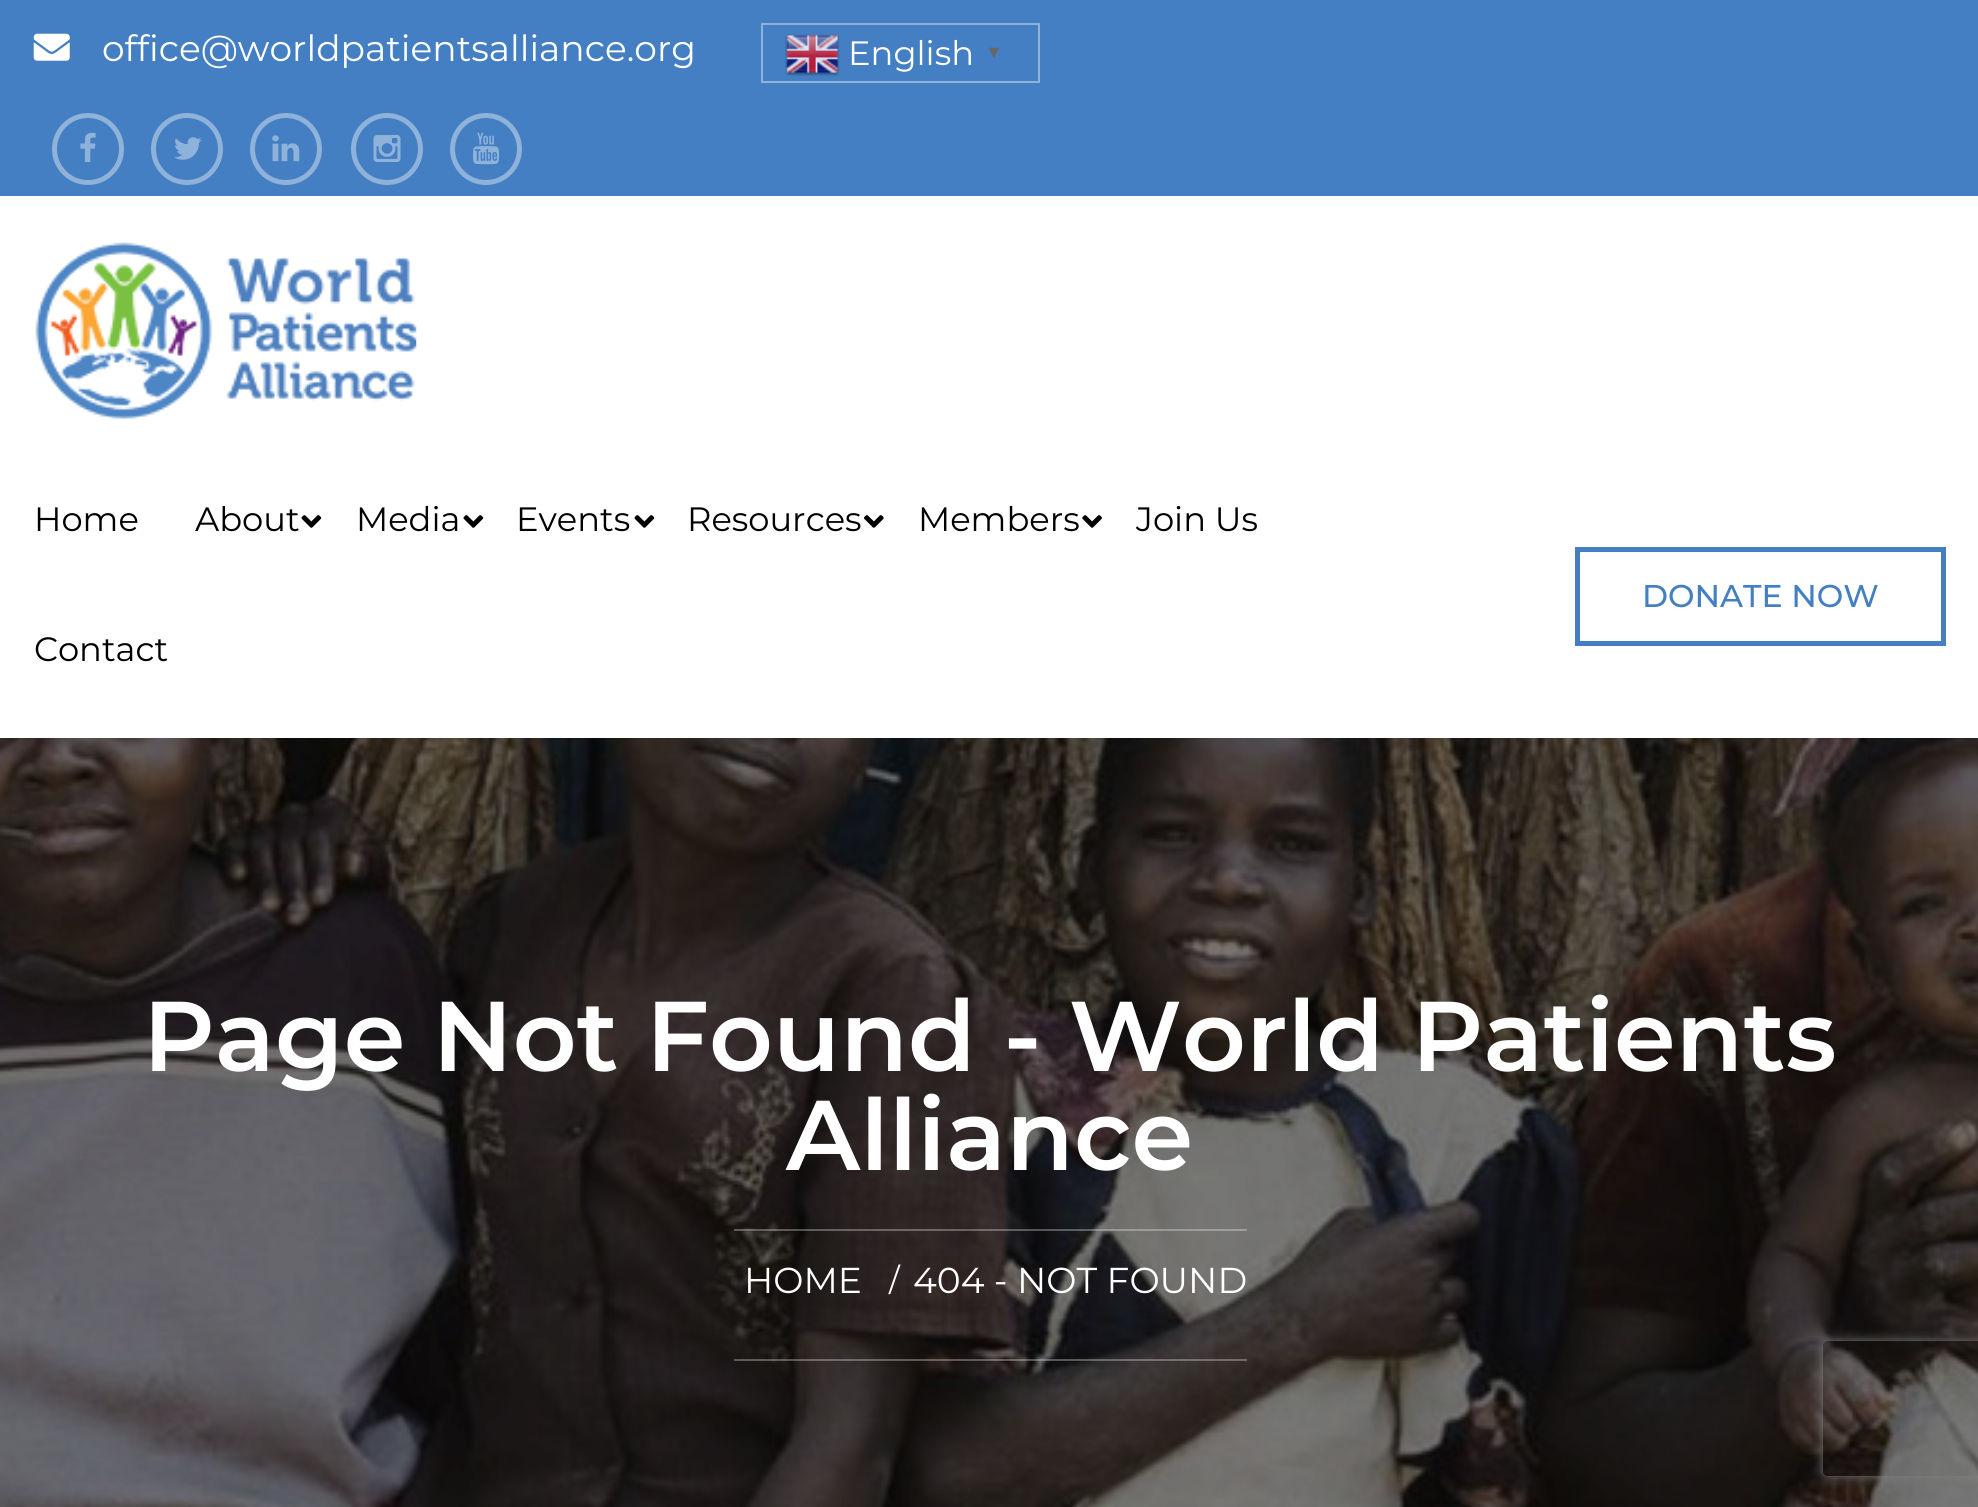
import math
import cairo



def rounded_rect(context, x, y, w, h, r):
    context.new_sub_path()
    for i, (u, v) in enumerate([(x + w - r, y + h - r), (x + r, y + h - r), (x + r, y + r), (x + w - r, y + r)]):
        context.arc(u, v, r, i * math.pi / 2, (i + 1) * math.pi / 2)
    context.close_path()


def draw_shadow(context, x, y, w, h, r, blur, alpha):
    context.push_group_with_content(cairo.Content.ALPHA)
    context.set_operator(cairo.Operator.SOURCE)
    for i in range(15, -16, -2):
        e = blur * i / 6
        if min(w, h) + 2 * e > 0:
            context.set_source_rgba(0, 0, 0, alpha * math.erfc((i - 1) / 8.5) / 2)
            rounded_rect(context, x - e, y - e, w + 2 * e, h + 2 * e, max(0, min(r + e + blur * .6, min(w, h) / 2 + e)))
            context.fill()
    context.mask(context.pop_group())


def draw_image(context, path, x, y, w, h):
    context.save()
    context.set_source_surface(cairo.ImageSurface.create_from_png(path), x, y)
    context.rectangle(x, y, w, h)
    context.fill()
    context.restore()


def draw(context):
    context.set_source_rgb(1, 1, 1)
    context.paint()
    context.set_source_rgb(67 / 255, 127 / 255, 194 / 255)
    context.rectangle(0, 0, 1978, 196)
    context.fill()
    draw_image(context, "images/1.png", 33, 33, 37, 28)
    context.rectangle(762, 24, 277, 58)
    context.set_source_rgb(142 / 255, 178 / 255, 218 / 255)
    context.stroke()
    draw_image(context, "images/2.png", 785, 34, 55, 42)
    context.arc(88, 149, 33.5, 0, 2 * math.pi)
    context.set_line_width(5)
    context.stroke()
    draw_image(context, "images/3.png", 80, 132, 16, 30)
    context.arc(187, 149, 33.5, 0, 2 * math.pi)
    context.stroke()
    draw_image(context, "images/4.png", 174, 137, 28, 23)
    context.arc(286, 149, 33.5, 0, 2 * math.pi)
    context.stroke()
    draw_image(context, "images/5.png", 272, 135, 28, 27)
    context.arc(387, 149, 33.5, 0, 2 * math.pi)
    context.stroke()
    draw_image(context, "images/6.png", 373, 135, 28, 27)
    context.arc(486, 149, 33.5, 0, 2 * math.pi)
    context.stroke()
    draw_image(context, "images/7.png", 473, 132, 26, 33)
    draw_image(context, "images/8.png", 35, 242, 382, 178)
    draw_image(context, "images/9.png", 301, 515, 21, 13)
    draw_image(context, "images/9.png", 463, 515, 21, 13)
    draw_image(context, "images/9.png", 634, 515, 21, 13)
    draw_image(context, "images/10.png", 864, 515, 20, 13)
    draw_image(context, "images/11.png", 1082, 515, 20, 13)
    context.rectangle(1577.5, 549.5, 366, 94)
    context.set_source_rgb(67 / 255, 127 / 255, 194 / 255)
    context.stroke()
    draw_image(context, "images/12.png", 0, 738, 1978, 769)
    context.set_source_rgba(1, 1, 1, 0.3)
    context.rectangle(734, 1229, 513, 2)
    context.fill()
    context.rectangle(734, 1359, 513, 2)
    context.fill()
    context.save()
    context.set_fill_rule(cairo.FillRule.EVEN_ODD)
    context.new_path()
    context.move_to(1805, 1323)
    context.line_to(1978, 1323)
    context.line_to(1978, 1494)
    context.line_to(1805, 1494)
    context.close_path()
    context.move_to(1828, 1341)
    context.line_to(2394, 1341)
    context.curve_to(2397, 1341, 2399, 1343, 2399, 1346)
    context.line_to(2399, 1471)
    context.curve_to(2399, 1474, 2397, 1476, 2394, 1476)
    context.line_to(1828, 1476)
    context.curve_to(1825, 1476, 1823, 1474, 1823, 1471)
    context.line_to(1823, 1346)
    context.curve_to(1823, 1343, 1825, 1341, 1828, 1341)
    context.close_path()
    context.clip()
    context.set_source_rgb(128 / 255, 128 / 255, 128 / 255)
    draw_shadow(context, 1823, 1341, 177, 135, 5, 5.5, 1)
    context.restore()
    context.select_font_face("Montserrat")
    context.set_font_size(36)
    context.set_source_rgb(1, 1, 1)
    context.move_to(102, 61)
    context.show_text("office@worldpatientsalliance.org")
    context.set_font_size(33.75)
    context.move_to(848, 65)
    context.show_text("English")
    context.select_font_face("Liberation Serif", cairo.FontSlant.NORMAL, cairo.FontWeight.BOLD)
    context.set_font_size(18)
    context.set_source_rgb(102 / 255, 102 / 255, 102 / 255)
    context.move_to(985, 58)
    context.show_text("▼")
    context.select_font_face("Montserrat")
    context.set_font_size(33.75)
    context.set_source_rgb(0, 0, 0)
    context.move_to(34, 531)
    context.show_text("Home")
    context.move_to(195, 531)
    context.show_text("About")
    context.move_to(356, 531)
    context.show_text("Media")
    context.move_to(516, 531)
    context.show_text("Events")
    context.move_to(687, 531)
    context.show_text("Resources")
    context.move_to(918, 531)
    context.show_text("Members")
    context.move_to(1136, 531)
    context.show_text("Join Us")
    context.move_to(34, 661)
    context.show_text("Contact")
    context.select_font_face("Montserrat Medium")
    context.set_font_size(31.5)
    context.set_source_rgb(67 / 255, 127 / 255, 194 / 255)
    context.move_to(1642, 607)
    context.show_text("DONATE NOW")
    context.select_font_face("Montserrat SemiBold")
    context.set_font_size(99)
    context.set_source_rgb(1, 1, 1)
    context.move_to(143, 1071)
    context.show_text("Page Not Found - World Patients")
    context.move_to(786, 1170)
    context.show_text("Alliance")
    context.select_font_face("Montserrat")
    context.set_font_size(36)
    context.move_to(744, 1293)
    context.show_text("HOME")
    context.set_font_size(31.5)
    context.move_to(889, 1291)
    context.show_text("/")
    context.set_font_size(36)
    context.move_to(913, 1293)
    context.show_text("404 - NOT FOUND")


surface = cairo.ImageSurface(cairo.Format.RGB24, 1978, 1507)
context = cairo.Context(surface)
options = cairo.FontOptions()
options.set_hint_metrics(cairo.HintMetrics.OFF)
options.set_hint_style(cairo.HintStyle.NONE)
context.set_font_options(options)
context.set_miter_limit(4)
draw(context)
surface.write_to_png("out.png")
